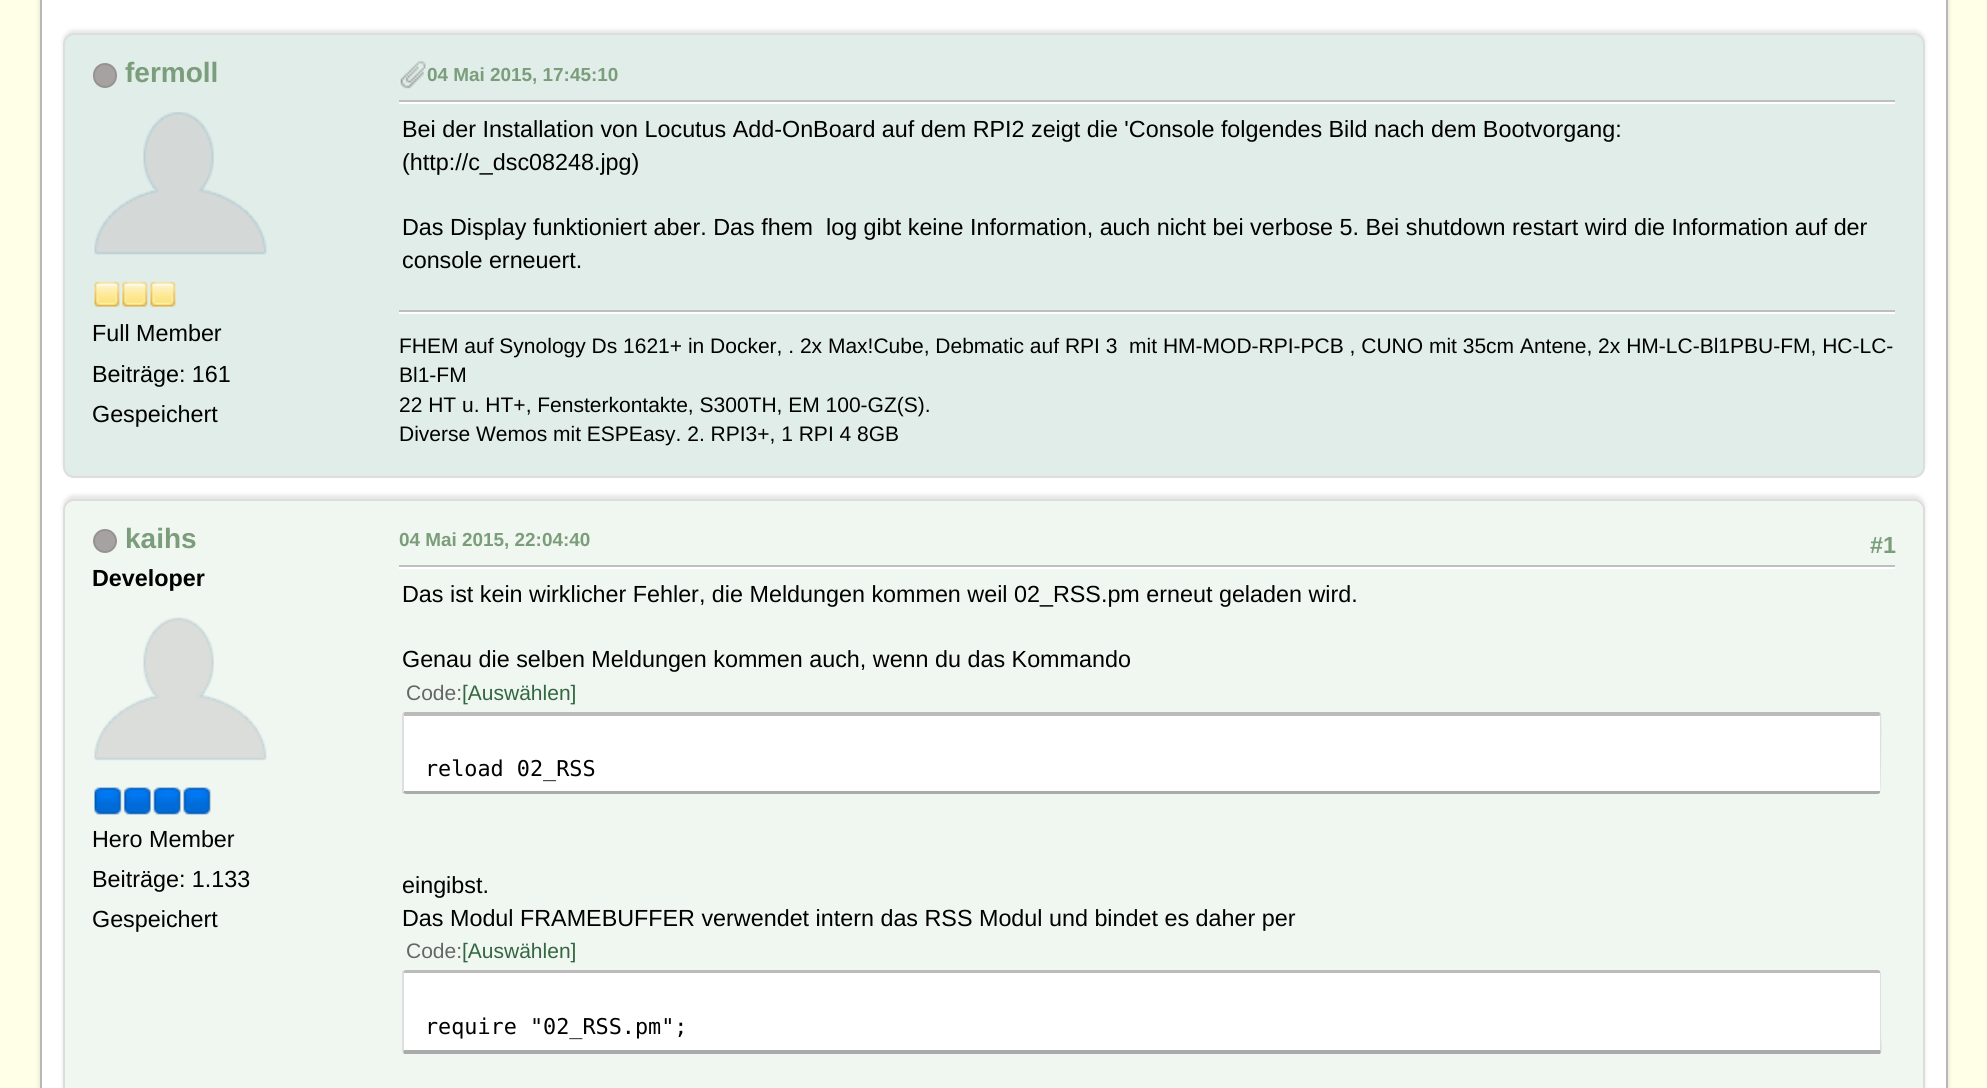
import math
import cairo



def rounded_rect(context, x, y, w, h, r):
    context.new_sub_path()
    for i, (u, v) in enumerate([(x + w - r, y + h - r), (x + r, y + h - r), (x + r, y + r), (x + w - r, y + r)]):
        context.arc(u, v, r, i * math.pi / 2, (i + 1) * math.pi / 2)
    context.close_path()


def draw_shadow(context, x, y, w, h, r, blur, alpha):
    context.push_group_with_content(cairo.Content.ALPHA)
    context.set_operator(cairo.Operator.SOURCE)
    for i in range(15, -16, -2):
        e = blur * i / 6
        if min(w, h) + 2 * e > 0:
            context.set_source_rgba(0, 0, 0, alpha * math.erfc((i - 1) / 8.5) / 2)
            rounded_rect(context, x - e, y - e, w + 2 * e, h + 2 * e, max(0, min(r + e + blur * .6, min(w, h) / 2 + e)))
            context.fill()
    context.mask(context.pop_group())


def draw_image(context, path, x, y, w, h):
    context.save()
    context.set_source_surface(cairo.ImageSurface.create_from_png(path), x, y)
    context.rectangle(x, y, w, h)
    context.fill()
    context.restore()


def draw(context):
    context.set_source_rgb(1, 1, 231 / 255)
    context.paint()
    context.set_source_rgb(0, 0, 0)
    draw_shadow(context, 40, -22, 1908, 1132, 14, 2.5, 0.14)
    context.set_source_rgb(1, 1, 1)
    context.rectangle(41, -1, 1906, 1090)
    context.fill_preserve()
    context.set_source_rgb(184 / 255, 184 / 255, 184 / 255)
    context.stroke()
    context.set_source_rgb(0, 0, 0)
    draw_shadow(context, 63, 30, 1862, 444, 11, 2, 0.1)
    context.set_source_rgb(224 / 255, 237 / 255, 233 / 255)
    rounded_rect(context, 64, 34, 1860, 443, 10)
    context.fill_preserve()
    context.set_source_rgb(221 / 255, 221 / 255, 221 / 255)
    context.stroke()
    context.set_source_rgb(167 / 255, 162 / 255, 162 / 255)
    rounded_rect(context, 94, 64, 22, 23, 11)
    context.fill_preserve()
    context.set_source_rgb(150 / 255, 146 / 255, 146 / 255)
    context.stroke()
    draw_image(context, "images/1.png", 94, 112, 173, 143)
    draw_image(context, "images/2.png", 94, 281, 26, 26)
    draw_image(context, "images/3.png", 122, 281, 26, 26)
    draw_image(context, "images/3.png", 150, 281, 26, 26)
    draw_image(context, "images/4.png", 399, 61, 27, 28)
    context.set_source_rgb(1, 1, 1)
    context.rectangle(399, 102, 1496, 2)
    context.fill()
    context.set_source_rgb(191 / 255, 191 / 255, 191 / 255)
    context.rectangle(399, 100, 1496, 2)
    context.fill()
    context.set_source_rgb(1, 1, 1)
    context.rectangle(399, 312, 1496, 2)
    context.fill()
    context.set_source_rgb(191 / 255, 191 / 255, 191 / 255)
    context.rectangle(399, 310, 1496, 2)
    context.fill()
    context.set_source_rgb(0, 0, 0)
    draw_shadow(context, 63, 495, 1862, 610, 11, 2, 0.1)
    context.set_source_rgb(240 / 255, 247 / 255, 240 / 255)
    rounded_rect(context, 64, 500, 1860, 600, 10)
    context.fill_preserve()
    context.set_source_rgb(221 / 255, 221 / 255, 221 / 255)
    context.stroke()
    context.set_source_rgb(167 / 255, 162 / 255, 162 / 255)
    context.arc(105, 541, 11, 0, 2 * math.pi)
    context.fill_preserve()
    context.set_source_rgb(150 / 255, 146 / 255, 146 / 255)
    context.stroke()
    draw_image(context, "images/5.png", 94, 617, 173, 144)
    draw_image(context, "images/6.png", 94, 787, 28, 28)
    draw_image(context, "images/7.png", 123, 787, 28, 28)
    draw_image(context, "images/8.png", 153, 787, 28, 28)
    draw_image(context, "images/9.png", 183, 787, 28, 28)
    context.set_source_rgb(1, 1, 1)
    context.rectangle(399, 567, 1496, 2)
    context.fill()
    context.set_source_rgb(191 / 255, 191 / 255, 191 / 255)
    context.rectangle(399, 565, 1496, 2)
    context.fill()
    context.set_source_rgb(1, 1, 1)
    context.new_path()
    context.move_to(406, 716)
    context.line_to(1880, 716)
    context.line_to(1880, 791)
    context.line_to(404, 791)
    context.line_to(404, 716)
    context.close_path()
    context.fill()
    context.set_source_rgb(187 / 255, 187 / 255, 187 / 255)
    context.new_path()
    context.move_to(403, 713)
    context.line_to(405, 712)
    context.line_to(1879, 712)
    context.line_to(1881, 714)
    context.line_to(1879, 716)
    context.line_to(404, 716)
    context.close_path()
    context.fill()
    context.set_source_rgb(223 / 255, 223 / 255, 223 / 255)
    context.new_path()
    context.move_to(1881, 714)
    context.curve_to(1882, 717, 1881, 792, 1880, 793)
    context.line_to(1880, 791)
    context.line_to(1880, 716)
    context.line_to(1879, 716)
    context.close_path()
    context.fill()
    context.set_source_rgb(170 / 255, 170 / 255, 170 / 255)
    context.new_path()
    context.move_to(1880, 793)
    context.line_to(1878, 794)
    context.line_to(406, 794)
    context.line_to(403, 793)
    context.line_to(404, 791)
    context.line_to(1880, 791)
    context.close_path()
    context.fill()
    context.set_source_rgb(223 / 255, 223 / 255, 223 / 255)
    context.new_path()
    context.move_to(402, 714)
    context.line_to(403, 713)
    context.line_to(404, 716)
    context.line_to(404, 791)
    context.line_to(403, 793)
    context.line_to(402, 793)
    context.close_path()
    context.fill()
    context.set_source_rgb(1, 1, 1)
    context.new_path()
    context.move_to(406, 973)
    context.line_to(1880, 973)
    context.line_to(1880, 1050)
    context.line_to(404, 1050)
    context.line_to(404, 973)
    context.close_path()
    context.fill()
    context.set_source_rgb(187 / 255, 187 / 255, 187 / 255)
    context.new_path()
    context.move_to(406, 970)
    context.line_to(403, 971)
    context.line_to(404, 973)
    context.line_to(1880, 973)
    context.line_to(1880, 971)
    context.line_to(1878, 970)
    context.close_path()
    context.fill()
    context.set_source_rgb(223 / 255, 223 / 255, 223 / 255)
    context.new_path()
    context.move_to(1881, 1052)
    context.curve_to(1883, 1048, 1881, 1042, 1881, 1037)
    context.line_to(1881, 973)
    context.line_to(1880, 971)
    context.line_to(1880, 973)
    context.line_to(1880, 1050)
    context.close_path()
    context.fill()
    context.set_source_rgb(170 / 255, 170 / 255, 170 / 255)
    context.new_path()
    context.move_to(404, 1054)
    context.line_to(403, 1052)
    context.line_to(404, 1050)
    context.line_to(1880, 1050)
    context.line_to(1881, 1052)
    context.line_to(1880, 1054)
    context.close_path()
    context.fill()
    context.set_source_rgb(223 / 255, 223 / 255, 223 / 255)
    context.new_path()
    context.move_to(402, 971)
    context.line_to(403, 971)
    context.line_to(404, 973)
    context.line_to(404, 1050)
    context.line_to(403, 1052)
    context.line_to(402, 1052)
    context.close_path()
    context.fill()
    context.select_font_face("Liberation Sans", cairo.FontSlant.NORMAL, cairo.FontWeight.BOLD)
    context.set_font_size(28)
    context.set_source_rgb(123 / 255, 157 / 255, 123 / 255)
    context.move_to(125, 82)
    context.show_text("fermoll")
    context.select_font_face("Liberation Sans")
    context.set_font_size(23.33)
    context.set_source_rgb(0, 0, 0)
    context.move_to(92, 341)
    context.show_text("Full Member")
    context.move_to(92, 382)
    context.show_text("Beiträge: 161")
    context.move_to(92, 422)
    context.show_text("Gespeichert")
    context.select_font_face("Liberation Sans", cairo.FontSlant.NORMAL, cairo.FontWeight.BOLD)
    context.set_font_size(18.9)
    context.set_source_rgb(123 / 255, 157 / 255, 123 / 255)
    context.move_to(427, 81)
    context.show_text("04 Mai 2015, 17:45:10")
    context.select_font_face("Liberation Sans")
    context.set_font_size(23.33)
    context.set_source_rgb(0, 0, 0)
    context.move_to(402, 137)
    context.show_text("Bei der Installation von Locutus Add-OnBoard auf dem RPI2 zeigt die 'Console folgendes Bild nach dem Bootvorgang:")
    context.move_to(402, 170)
    context.show_text("(http://c_dsc08248.jpg)")
    context.move_to(402, 235)
    context.show_text("Das Display funktioniert aber. Das fhem  log gibt keine Information, auch nicht bei verbose 5. Bei shutdown restart wird die Information auf der")
    context.move_to(402, 268)
    context.show_text("console erneuert.")
    context.set_font_size(21)
    context.move_to(399, 353)
    context.show_text("FHEM auf Synology Ds 1621+ in Docker, . 2x Max!Cube, Debmatic auf RPI 3  mit HM-MOD-RPI-PCB , CUNO mit 35cm Antene, 2x HM-LC-Bl1PBU-FM, HC-LC-")
    context.move_to(399, 382)
    context.show_text("Bl1-FM")
    context.move_to(399, 412)
    context.show_text("22 HT u. HT+, Fensterkontakte, S300TH, EM 100-GZ(S).")
    context.move_to(399, 441)
    context.show_text("Diverse Wemos mit ESPEasy. 2. RPI3+, 1 RPI 4 8GB")
    context.select_font_face("Liberation Sans", cairo.FontSlant.NORMAL, cairo.FontWeight.BOLD)
    context.set_font_size(28)
    context.set_source_rgb(123 / 255, 157 / 255, 123 / 255)
    context.move_to(125, 548)
    context.show_text("kaihs")
    context.set_font_size(23.33)
    context.set_source_rgb(0, 0, 0)
    context.move_to(92, 586)
    context.show_text("Developer")
    context.select_font_face("Liberation Sans")
    context.move_to(92, 847)
    context.show_text("Hero Member")
    context.move_to(92, 887)
    context.show_text("Beiträge: 1.133")
    context.move_to(92, 927)
    context.show_text("Gespeichert")
    context.select_font_face("Liberation Sans", cairo.FontSlant.NORMAL, cairo.FontWeight.BOLD)
    context.set_font_size(18.9)
    context.set_source_rgb(123 / 255, 157 / 255, 123 / 255)
    context.move_to(399, 546)
    context.show_text("04 Mai 2015, 22:04:40")
    context.set_font_size(23.33)
    context.move_to(1870, 553)
    context.show_text("#1")
    context.select_font_face("Liberation Sans")
    context.set_source_rgb(0, 0, 0)
    context.move_to(402, 602)
    context.show_text("Das ist kein wirklicher Fehler, die Meldungen kommen weil 02_RSS.pm erneut geladen wird.")
    context.move_to(402, 667)
    context.show_text("Genau die selben Meldungen kommen auch, wenn du das Kommando")
    context.set_font_size(21)
    context.set_source_rgb(102 / 255, 102 / 255, 102 / 255)
    context.move_to(406, 700)
    context.show_text("Code:")
    context.set_source_rgb(51 / 255, 102 / 255, 66 / 255)
    context.move_to(462, 700)
    context.show_text("[Auswählen]")
    context.select_font_face("DejaVu Sans Mono")
    context.set_font_size(21.8)
    context.set_source_rgb(0, 0, 0)
    context.move_to(425, 776)
    context.show_text("reload 02_RSS")
    context.select_font_face("Liberation Sans")
    context.set_font_size(23.33)
    context.move_to(402, 893)
    context.show_text("eingibst.")
    context.move_to(402, 926)
    context.show_text("Das Modul FRAMEBUFFER verwendet intern das RSS Modul und bindet es daher per")
    context.set_font_size(21)
    context.set_source_rgb(102 / 255, 102 / 255, 102 / 255)
    context.move_to(406, 958)
    context.show_text("Code:")
    context.set_source_rgb(51 / 255, 102 / 255, 66 / 255)
    context.move_to(462, 958)
    context.show_text("[Auswählen]")
    context.select_font_face("DejaVu Sans Mono")
    context.set_font_size(21.8)
    context.set_source_rgb(0, 0, 0)
    context.move_to(425, 1034)
    context.show_text("require \"02_RSS.pm\";")


surface = cairo.ImageSurface(cairo.Format.RGB24, 1987, 1088)
context = cairo.Context(surface)
options = cairo.FontOptions()
options.set_hint_metrics(cairo.HintMetrics.OFF)
options.set_hint_style(cairo.HintStyle.NONE)
context.set_font_options(options)
context.set_miter_limit(4)
draw(context)
surface.write_to_png("out.png")
